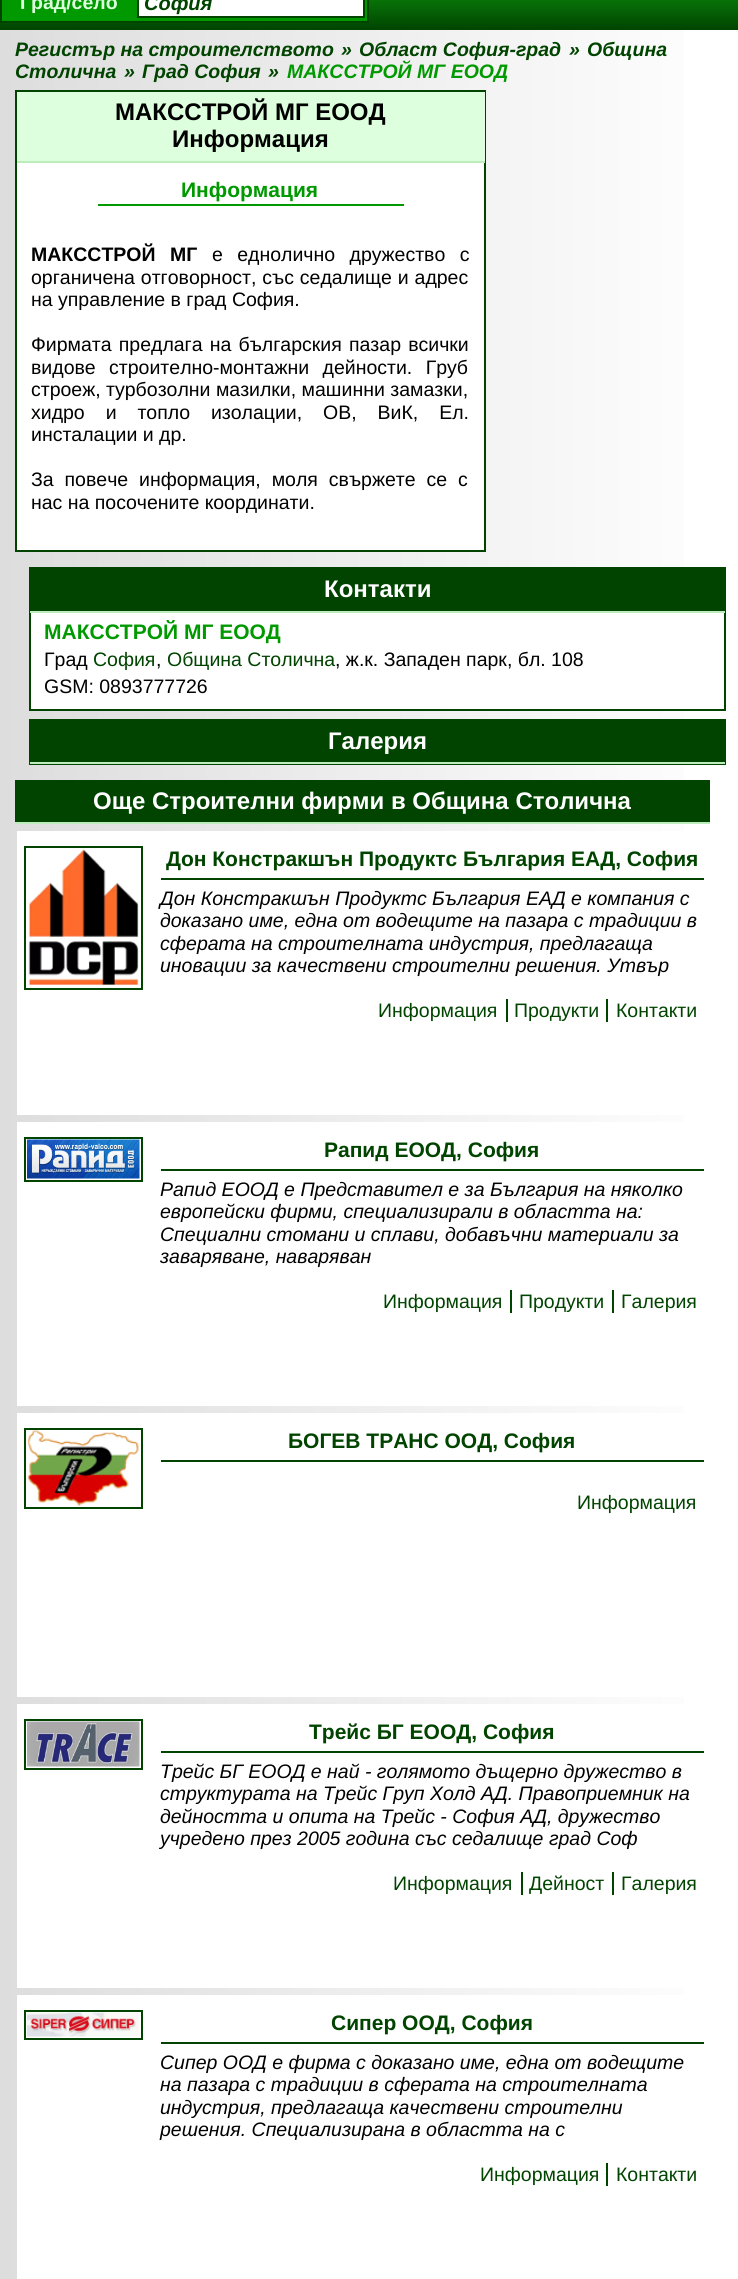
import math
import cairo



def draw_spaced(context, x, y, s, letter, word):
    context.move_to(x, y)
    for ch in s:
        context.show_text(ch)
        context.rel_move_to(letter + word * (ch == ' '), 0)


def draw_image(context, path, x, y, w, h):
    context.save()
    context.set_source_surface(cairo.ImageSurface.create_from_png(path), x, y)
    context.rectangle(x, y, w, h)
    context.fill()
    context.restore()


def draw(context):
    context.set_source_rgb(1, 1, 1)
    context.paint()
    gradient = cairo.LinearGradient(738, 1583, 0, 1583)
    gradient.add_color_stop_rgba(0, 1, 1, 1, 1)
    gradient.add_color_stop_rgba(1, 221 / 255, 221 / 255, 221 / 255, 1)
    context.set_source(gradient)
    context.rectangle(0, 30, 684, 2249)
    context.fill()
    gradient = cairo.LinearGradient(369, 30, 369, -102)
    gradient.add_color_stop_rgba(0, 0, 68 / 255, 0, 1)
    gradient.add_color_stop_rgba(0.5, 17 / 255, 170 / 255, 17 / 255, 1)
    gradient.add_color_stop_rgba(1, 0, 68 / 255, 0, 1)
    context.set_source(gradient)
    context.rectangle(0, 0, 738, 30)
    context.fill()
    context.set_source_rgb(0, 153 / 255, 0)
    context.rectangle(1, -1, 367, 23)
    context.fill_preserve()
    context.set_source_rgb(0, 68 / 255, 0)
    context.stroke()
    context.set_source_rgb(1, 1, 1)
    context.rectangle(138, -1, 226, 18)
    context.fill_preserve()
    context.set_source_rgb(0, 68 / 255, 0)
    context.stroke()
    context.set_source_rgb(1, 1, 1)
    context.rectangle(17, 163, 467, 387)
    context.fill()
    context.rectangle(16, 91, 469, 460)
    context.set_source_rgb(0, 68 / 255, 0)
    context.stroke()
    context.set_source_rgb(221 / 255, 1, 221 / 255)
    context.rectangle(17, 92, 468, 69)
    context.fill()
    context.set_source_rgb(187 / 255, 238 / 255, 187 / 255)
    context.rectangle(17, 161, 468, 2)
    context.fill()
    context.set_source_rgb(0, 153 / 255, 0)
    context.rectangle(98, 204, 306, 2)
    context.fill()
    context.set_source_rgb(1, 1, 1)
    context.rectangle(31, 613, 653, 96)
    context.fill()
    context.rectangle(30, 568, 695, 142)
    context.set_source_rgb(0, 68 / 255, 0)
    context.stroke()
    context.rectangle(31, 569, 693, 42)
    context.fill()
    context.set_source_rgb(187 / 255, 238 / 255, 187 / 255)
    context.rectangle(30, 611, 695, 2)
    context.fill()
    context.rectangle(30, 720, 695, 44)
    context.set_source_rgb(0, 68 / 255, 0)
    context.stroke()
    context.rectangle(31, 721, 693, 41)
    context.fill()
    context.set_source_rgb(187 / 255, 238 / 255, 187 / 255)
    context.rectangle(30, 762, 695, 2)
    context.fill()
    context.set_source_rgb(0, 68 / 255, 0)
    context.rectangle(15, 780, 695, 42)
    context.fill()
    context.set_source_rgb(187 / 255, 238 / 255, 187 / 255)
    context.rectangle(15, 822, 695, 2)
    context.fill()
    context.set_source_rgb(1, 1, 1)
    context.rectangle(17, 831, 667, 284)
    context.fill()
    context.rectangle(25, 847, 117, 142)
    context.set_source_rgb(0, 68 / 255, 0)
    context.stroke()
    draw_image(context, "images/1.png", 28, 849, 111, 136)
    context.rectangle(161, 878, 543, 2)
    context.fill()
    context.rectangle(506, 999, 2, 23)
    context.fill()
    context.rectangle(606, 999, 2, 23)
    context.fill()
    context.set_source_rgb(1, 1, 1)
    context.rectangle(17, 1122, 667, 284)
    context.fill()
    context.rectangle(25, 1138, 117, 43)
    context.set_source_rgb(0, 68 / 255, 0)
    context.stroke()
    draw_image(context, "images/2.png", 27, 1139, 113, 40)
    context.rectangle(161, 1169, 543, 2)
    context.fill()
    context.rectangle(510, 1290, 2, 23)
    context.fill()
    context.rectangle(612, 1290, 2, 23)
    context.fill()
    context.set_source_rgb(1, 1, 1)
    context.rectangle(17, 1413, 667, 284)
    context.fill()
    context.rectangle(25, 1429, 117, 79)
    context.set_source_rgb(0, 68 / 255, 0)
    context.stroke()
    draw_image(context, "images/3.png", 28, 1430, 111, 76)
    context.rectangle(161, 1460, 543, 2)
    context.fill()
    context.set_source_rgb(1, 1, 1)
    context.rectangle(17, 1704, 667, 284)
    context.fill()
    context.rectangle(25, 1720, 117, 49)
    context.set_source_rgb(0, 68 / 255, 0)
    context.stroke()
    draw_image(context, "images/4.png", 27, 1721, 113, 46)
    context.rectangle(161, 1751, 543, 2)
    context.fill()
    context.rectangle(521, 1872, 2, 23)
    context.fill()
    context.rectangle(612, 1872, 2, 23)
    context.fill()
    context.set_source_rgb(1, 1, 1)
    context.rectangle(17, 1995, 667, 284)
    context.fill()
    context.rectangle(25, 2011, 117, 28)
    context.set_source_rgb(0, 68 / 255, 0)
    context.stroke()
    draw_image(context, "images/5.png", 27, 2012, 113, 25)
    context.rectangle(161, 2042, 543, 2)
    context.fill()
    context.rectangle(606, 2163, 2, 23)
    context.fill()
    context.select_font_face("Liberation Sans", cairo.FontSlant.NORMAL, cairo.FontWeight.BOLD)
    context.set_font_size(19.5)
    context.set_source_rgb(221 / 255, 1, 221 / 255)
    context.move_to(20, 9)
    context.show_text("Град/село")
    context.select_font_face("Liberation Sans", cairo.FontSlant.ITALIC, cairo.FontWeight.BOLD)
    context.set_font_size(20)
    context.set_source_rgb(0, 68 / 255, 0)
    context.move_to(144, 10)
    context.show_text("София")
    context.set_font_size(19.5)
    context.move_to(15, 56)
    context.show_text("Регистър на строителството")
    context.move_to(341, 56)
    context.show_text("»")
    context.move_to(359, 56)
    context.show_text("Област София-град")
    context.move_to(569, 56)
    context.show_text("»")
    context.move_to(587, 56)
    context.show_text("Община")
    context.move_to(15, 78)
    context.show_text("Столична")
    context.move_to(124, 78)
    context.show_text("»")
    context.move_to(142, 78)
    context.show_text("Град София")
    context.move_to(268, 78)
    context.show_text("»")
    context.set_source_rgb(0, 153 / 255, 0)
    context.move_to(287, 78)
    context.show_text("МАКССТРОЙ МГ ЕООД")
    context.select_font_face("Liberation Sans", cairo.FontSlant.NORMAL, cairo.FontWeight.BOLD)
    context.set_font_size(24)
    context.set_source_rgb(0, 0, 0)
    context.move_to(115, 120)
    context.show_text("МАКССТРОЙ МГ ЕООД")
    context.move_to(172, 147)
    context.show_text("Информация")
    context.set_font_size(21)
    context.set_source_rgb(0, 153 / 255, 0)
    context.move_to(181, 197)
    context.show_text("Информация")
    context.set_font_size(19.5)
    context.set_source_rgb(0, 0, 0)
    draw_spaced(context, 31, 261, "МАКССТРОЙ МГ", 0, 9)
    context.select_font_face("Liberation Sans")
    draw_spaced(context, 212, 261, "е еднолично дружество с", 0, 9)
    draw_spaced(context, 31, 284, "органичена отговорност, със седалище и адрес", 0, 0.5)
    context.move_to(31, 306)
    context.show_text("на управление в град София.")
    draw_spaced(context, 31, 351, "Фирмата предлага на българския пазар всички", 0, 1.75)
    draw_spaced(context, 31, 374, "видове строително-монтажни дейности. Груб", 0, 8)
    context.move_to(31, 396)
    context.show_text("строеж, турбозолни мазилки, машинни замазки,")
    draw_spaced(context, 31, 419, "хидро и топло изолации, ОВ, ВиК, Ел.", 0, 15.5)
    context.move_to(31, 441)
    context.show_text("инсталации и др.")
    draw_spaced(context, 31, 486, "За повече информация, моля свържете се с", 0, 5.5)
    context.move_to(31, 509)
    context.show_text("нас на посочените координати.")
    context.select_font_face("Liberation Sans", cairo.FontSlant.NORMAL, cairo.FontWeight.BOLD)
    context.set_font_size(24)
    context.set_source_rgb(1, 1, 1)
    context.move_to(324, 597)
    context.show_text("Контакти")
    context.set_font_size(21)
    context.set_source_rgb(0, 153 / 255, 0)
    context.move_to(44, 639)
    context.show_text("МАКССТРОЙ МГ ЕООД")
    context.select_font_face("Liberation Sans")
    context.set_font_size(19.5)
    context.set_source_rgb(0, 0, 0)
    context.move_to(44, 666)
    context.show_text("Град")
    context.set_source_rgb(0, 68 / 255, 0)
    context.move_to(93, 666)
    context.show_text("София")
    context.set_source_rgb(0, 0, 0)
    context.move_to(156, 666)
    context.show_text(",")
    context.set_source_rgb(0, 68 / 255, 0)
    context.move_to(167, 666)
    context.show_text("Община Столична")
    context.set_source_rgb(0, 0, 0)
    context.move_to(335, 666)
    context.show_text(", ж.к. Западен парк, бл. 108")
    context.move_to(44, 693)
    context.show_text("GSM: 0893777726")
    context.select_font_face("Liberation Sans", cairo.FontSlant.NORMAL, cairo.FontWeight.BOLD)
    context.set_font_size(24)
    context.set_source_rgb(1, 1, 1)
    context.move_to(328, 749)
    context.show_text("Галерия")
    context.move_to(93, 809)
    context.show_text("Още Строителни фирми в Община Столична")
    context.set_font_size(21)
    context.set_source_rgb(0, 68 / 255, 0)
    context.move_to(166, 866)
    context.show_text("Дон Констракшън Продуктс България ЕАД, София")
    context.select_font_face("Liberation Sans", cairo.FontSlant.ITALIC)
    context.set_font_size(19.5)
    context.set_source_rgb(0, 0, 0)
    context.move_to(160, 905)
    context.show_text("Дон Констракшън Продуктс България ЕАД е компания с")
    context.move_to(160, 927)
    context.show_text("доказано име, една от водещите на пазара с традиции в")
    context.move_to(160, 950)
    context.show_text("сферата на строителната индустрия, предлагаща")
    context.move_to(160, 972)
    context.show_text("иновации за качествени строителни решения. Утвър")
    context.select_font_face("Liberation Sans")
    context.set_source_rgb(0, 68 / 255, 0)
    context.move_to(378, 1017)
    context.show_text("Информация")
    context.move_to(514, 1017)
    context.show_text("Продукти")
    context.move_to(616, 1017)
    context.show_text("Контакти")
    context.select_font_face("Liberation Sans", cairo.FontSlant.NORMAL, cairo.FontWeight.BOLD)
    context.set_font_size(21)
    context.move_to(324, 1157)
    context.show_text("Рапид ЕООД, София")
    context.select_font_face("Liberation Sans", cairo.FontSlant.ITALIC)
    context.set_font_size(19.5)
    context.set_source_rgb(0, 0, 0)
    context.move_to(160, 1196)
    context.show_text("Рапид ЕООД е Представител е за България на няколко")
    context.move_to(160, 1218)
    context.show_text("европейски фирми, специализирали в областта на:")
    context.move_to(160, 1241)
    context.show_text("Специални стомани и сплави, добавъчни материали за")
    context.move_to(160, 1263)
    context.show_text("заваряване, наваряван")
    context.select_font_face("Liberation Sans")
    context.set_source_rgb(0, 68 / 255, 0)
    context.move_to(383, 1308)
    context.show_text("Информация")
    context.move_to(519, 1308)
    context.show_text("Продукти")
    context.move_to(621, 1308)
    context.show_text("Галерия")
    context.select_font_face("Liberation Sans", cairo.FontSlant.NORMAL, cairo.FontWeight.BOLD)
    context.set_font_size(21)
    context.move_to(288, 1448)
    context.show_text("БОГЕВ ТРАНС ООД, София")
    context.select_font_face("Liberation Sans")
    context.set_font_size(19.5)
    context.move_to(577, 1509)
    context.show_text("Информация")
    context.select_font_face("Liberation Sans", cairo.FontSlant.NORMAL, cairo.FontWeight.BOLD)
    context.set_font_size(21)
    context.move_to(309, 1739)
    context.show_text("Трейс БГ ЕООД, София")
    context.select_font_face("Liberation Sans", cairo.FontSlant.ITALIC)
    context.set_font_size(19.5)
    context.set_source_rgb(0, 0, 0)
    context.move_to(160, 1778)
    context.show_text("Трейс БГ ЕООД е най - голямото дъщерно дружество в")
    context.move_to(160, 1800)
    context.show_text("структурата на Трейс Груп Холд АД. Правоприемник на")
    context.move_to(160, 1823)
    context.show_text("дейността и опита на Трейс - София АД, дружество")
    context.move_to(160, 1845)
    context.show_text("учредено през 2005 година със седалище град Соф")
    context.select_font_face("Liberation Sans")
    context.set_source_rgb(0, 68 / 255, 0)
    context.move_to(393, 1890)
    context.show_text("Информация")
    context.move_to(529, 1890)
    context.show_text("Дейност")
    context.move_to(621, 1890)
    context.show_text("Галерия")
    context.select_font_face("Liberation Sans", cairo.FontSlant.NORMAL, cairo.FontWeight.BOLD)
    context.set_font_size(21)
    context.move_to(331, 2030)
    context.show_text("Сипер ООД, София")
    context.select_font_face("Liberation Sans", cairo.FontSlant.ITALIC)
    context.set_font_size(19.5)
    context.set_source_rgb(0, 0, 0)
    context.move_to(160, 2069)
    context.show_text("Сипер ООД е фирма с доказано име, една от водещите")
    context.move_to(160, 2091)
    context.show_text("на пазара с традиции в сферата на строителната")
    context.move_to(160, 2114)
    context.show_text("индустрия, предлагаща качествени строителни")
    context.move_to(160, 2136)
    context.show_text("решения. Специализирана в областта на с")
    context.select_font_face("Liberation Sans")
    context.set_source_rgb(0, 68 / 255, 0)
    context.move_to(480, 2181)
    context.show_text("Информация")
    context.move_to(616, 2181)
    context.show_text("Контакти")


surface = cairo.ImageSurface(cairo.Format.RGB24, 738, 2279)
context = cairo.Context(surface)
options = cairo.FontOptions()
options.set_hint_metrics(cairo.HintMetrics.OFF)
options.set_hint_style(cairo.HintStyle.NONE)
context.set_font_options(options)
context.set_miter_limit(4)
draw(context)
surface.write_to_png("out.png")
